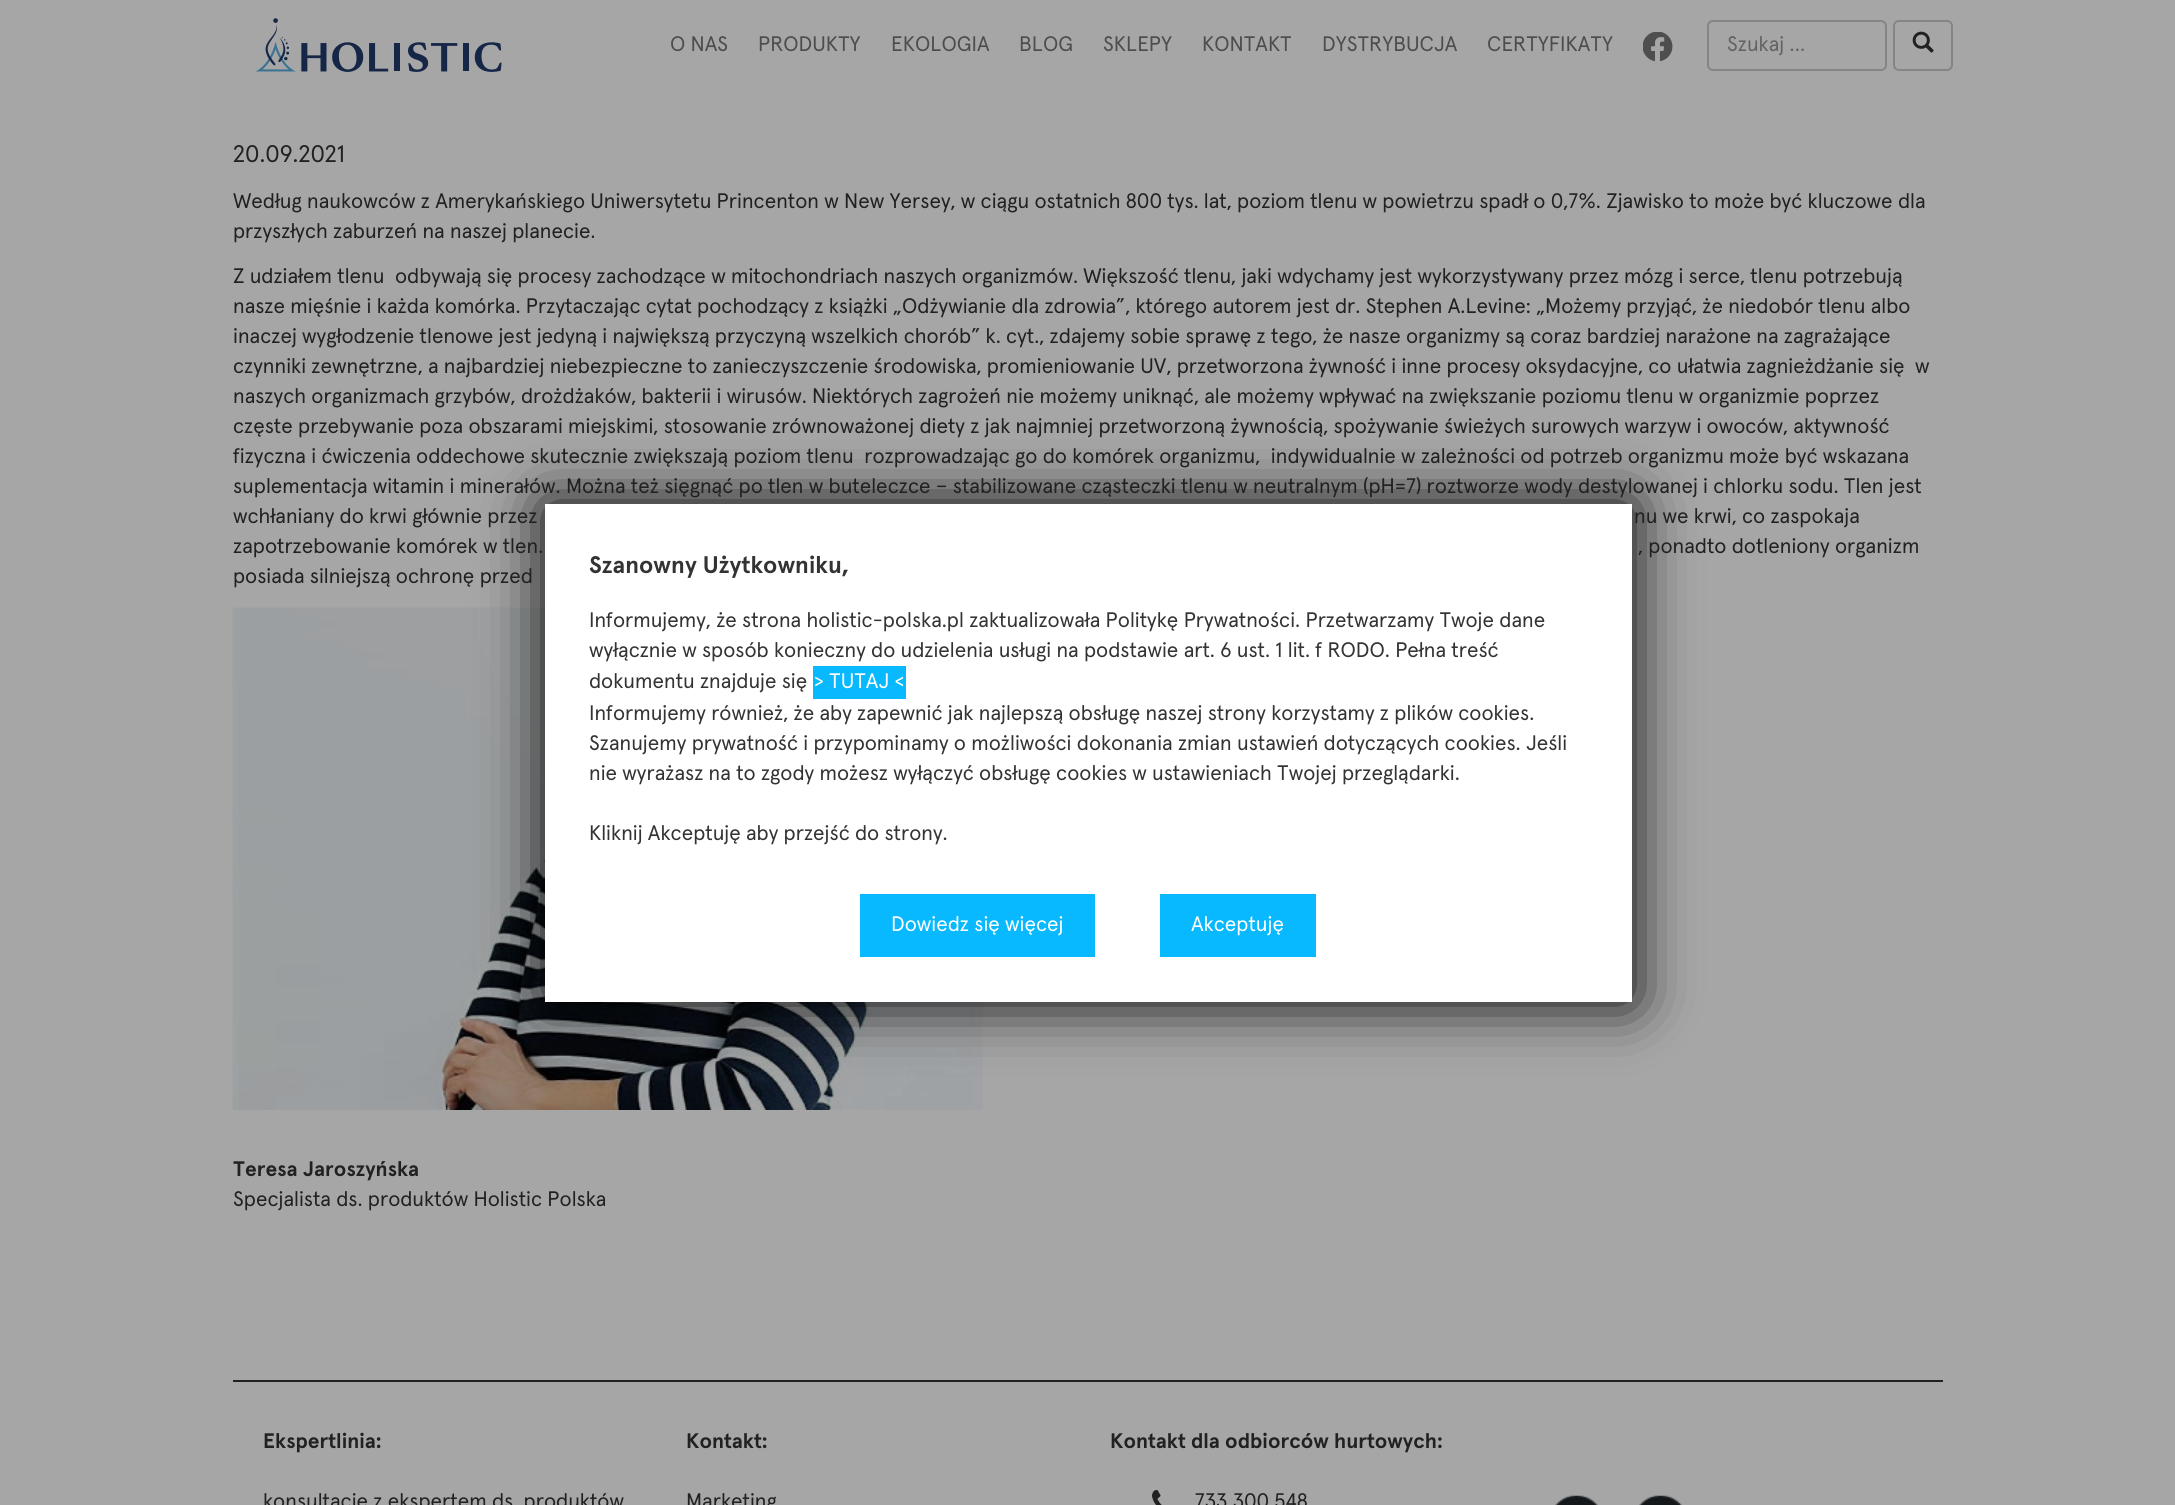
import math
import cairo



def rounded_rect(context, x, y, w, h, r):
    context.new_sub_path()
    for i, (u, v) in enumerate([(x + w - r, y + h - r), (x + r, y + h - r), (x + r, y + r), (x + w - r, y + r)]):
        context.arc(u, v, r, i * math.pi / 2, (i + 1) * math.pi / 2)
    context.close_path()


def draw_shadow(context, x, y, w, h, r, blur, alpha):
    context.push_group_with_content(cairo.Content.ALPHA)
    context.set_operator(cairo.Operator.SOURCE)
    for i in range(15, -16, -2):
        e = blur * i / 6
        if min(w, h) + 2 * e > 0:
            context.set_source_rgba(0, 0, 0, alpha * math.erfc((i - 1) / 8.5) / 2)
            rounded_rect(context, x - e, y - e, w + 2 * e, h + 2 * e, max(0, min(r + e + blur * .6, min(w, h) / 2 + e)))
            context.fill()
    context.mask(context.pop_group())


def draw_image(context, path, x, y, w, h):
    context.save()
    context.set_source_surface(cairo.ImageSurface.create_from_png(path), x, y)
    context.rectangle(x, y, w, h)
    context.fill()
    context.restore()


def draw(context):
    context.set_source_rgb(166 / 255, 166 / 255, 166 / 255)
    context.paint()
    draw_image(context, "images/1.png", 255, 18, 247, 54)
    draw_image(context, "images/2.png", 1643, 32, 30, 30)
    context.set_source_rgb(153 / 255, 153 / 255, 153 / 255)
    context.new_path()
    context.move_to(1713, 22)
    context.line_to(1881, 22)
    context.curve_to(1883, 22, 1886, 25, 1886, 27)
    context.line_to(1886, 26)
    context.curve_to(1886, 23, 1884, 21, 1881, 21)
    context.line_to(1714, 21)
    context.curve_to(1712, 21, 1710, 22, 1709, 24)
    context.curve_to(1710, 23, 1712, 22, 1713, 22)
    context.close_path()
    context.fill()
    rounded_rect(context, 1708, 21, 178, 49, 5)
    context.set_source_rgb(133 / 255, 133 / 255, 133 / 255)
    context.stroke()
    rounded_rect(context, 1894, 21, 58, 49, 5)
    context.stroke()
    draw_image(context, "images/3.png", 1912, 31, 22, 22)
    draw_image(context, "images/4.png", 232, 607, 751, 503)
    context.set_source_rgb(0, 0, 0)
    draw_shadow(context, 545, 504, 1087, 498, 0, 30, 1)
    context.set_source_rgb(1, 1, 1)
    context.rectangle(545, 504, 1087, 498)
    context.fill()
    context.set_source_rgb(8 / 255, 185 / 255, 1)
    context.rectangle(813, 666, 93, 33)
    context.fill()
    context.rectangle(860, 894, 235, 63)
    context.fill()
    context.rectangle(1160, 894, 156, 63)
    context.fill()
    context.set_source_rgb(33 / 255, 33 / 255, 33 / 255)
    context.rectangle(233, 1380, 1710, 2)
    context.fill()
    draw_image(context, "images/5.png", 1152, 1490, 10, 15)
    draw_image(context, "images/6.png", 1555, 1495, 43, 10)
    draw_image(context, "images/7.png", 1639, 1495, 43, 10)
    context.select_font_face("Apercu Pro")
    context.set_font_size(21)
    context.set_source_rgb(77 / 255, 77 / 255, 77 / 255)
    context.move_to(670, 51)
    context.show_text("O NAS")
    context.move_to(758, 51)
    context.show_text("PRODUKTY")
    context.move_to(891, 51)
    context.show_text("EKOLOGIA")
    context.move_to(1019, 51)
    context.show_text("BLOG")
    context.move_to(1103, 51)
    context.show_text("SKLEPY")
    context.move_to(1202, 51)
    context.show_text("KONTAKT")
    context.move_to(1322, 51)
    context.show_text("DYSTRYBUCJA")
    context.move_to(1487, 51)
    context.show_text("CERTYFIKATY")
    context.set_source_rgb(99 / 255, 99 / 255, 99 / 255)
    context.move_to(1727, 51)
    context.show_text("Szukaj …")
    context.set_font_size(24)
    context.set_source_rgb(33 / 255, 33 / 255, 33 / 255)
    context.move_to(233, 162)
    context.show_text("20.09.2021")
    context.set_font_size(21)
    context.move_to(233, 208)
    context.show_text("Według naukowców z Amerykańskiego Uniwersytetu Princenton w New Yersey, w ciągu ostatnich 800 tys. lat, poziom tlenu w powietrzu spadł o 0,7%. Zjawisko to może być kluczowe dla")
    context.move_to(233, 238)
    context.show_text("przyszłych zaburzeń na naszej planecie.")
    context.move_to(233, 283)
    context.show_text("Z udziałem tlenu  odbywają się procesy zachodzące w mitochondriach naszych organizmów. Większość tlenu, jaki wdychamy jest wykorzystywany przez mózg i serce, tlenu potrzebują")
    context.move_to(233, 313)
    context.show_text("nasze mięśnie i każda komórka. Przytaczając cytat pochodzący z książki „Odżywianie dla zdrowia”, którego autorem jest dr. Stephen A.Levine: „Możemy przyjąć, że niedobór tlenu albo")
    context.move_to(233, 343)
    context.show_text("inaczej wygłodzenie tlenowe jest jedyną i największą przyczyną wszelkich chorób” k. cyt., zdajemy sobie sprawę z tego, że nasze organizmy są coraz bardziej narażone na zagrażające")
    context.move_to(233, 373)
    context.show_text("czynniki zewnętrzne, a najbardziej niebezpieczne to zanieczyszczenie środowiska, promieniowanie UV, przetworzona żywność i inne procesy oksydacyjne, co ułatwia zagnieżdżanie się  w")
    context.move_to(233, 403)
    context.show_text("naszych organizmach grzybów, drożdżaków, bakterii i wirusów. Niektórych zagrożeń nie możemy uniknąć, ale możemy wpływać na zwiększanie poziomu tlenu w organizmie poprzez")
    context.move_to(233, 433)
    context.show_text("częste przebywanie poza obszarami miejskimi, stosowanie zrównoważonej diety z jak najmniej przetworzoną żywnością, spożywanie świeżych surowych warzyw i owoców, aktywność")
    context.move_to(233, 463)
    context.show_text("fizyczna i ćwiczenia oddechowe skutecznie zwiększają poziom tlenu  rozprowadzając go do komórek organizmu,  indywidualnie w zależności od potrzeb organizmu może być wskazana")
    context.move_to(233, 493)
    context.show_text("suplementacja witamin i minerałów. Można też sięgnąć po tlen w buteleczce – stabilizowane cząsteczki tlenu w neutralnym (pH=7) roztworze wody destylowanej i chlorku sodu. Tlen jest")
    context.move_to(233, 523)
    context.show_text("wchłaniany do krwi głównie przez")
    context.move_to(1634, 523)
    context.show_text("nu we krwi, co zaspokaja")
    context.move_to(233, 553)
    context.show_text("zapotrzebowanie komórek w tlen.")
    context.move_to(1638, 553)
    context.show_text(", ponadto dotleniony organizm")
    context.move_to(233, 583)
    context.show_text("posiada silniejszą ochronę przed")
    context.select_font_face("Apercu Pro", cairo.FontSlant.NORMAL, cairo.FontWeight.BOLD)
    context.move_to(233, 1176)
    context.show_text("Teresa Jaroszyńska")
    context.select_font_face("Apercu Pro")
    context.move_to(233, 1206)
    context.show_text("Specjalista ds. produktów Holistic Polska")
    context.select_font_face("Apercu Pro", cairo.FontSlant.NORMAL, cairo.FontWeight.BOLD)
    context.set_font_size(24)
    context.set_source_rgb(51 / 255, 51 / 255, 51 / 255)
    context.move_to(589, 573)
    context.show_text("Szanowny Użytkowniku,")
    context.select_font_face("Apercu Pro")
    context.set_font_size(21)
    context.move_to(589, 627)
    context.show_text("Informujemy, że strona holistic-polska.pl zaktualizowała Politykę Prywatności. Przetwarzamy Twoje dane")
    context.move_to(589, 657)
    context.show_text("wyłącznie w sposób konieczny do udzielenia usługi na podstawie art. 6 ust. 1 lit. f RODO. Pełna treść")
    context.move_to(589, 688)
    context.show_text("dokumentu znajduje się")
    context.set_source_rgb(1, 1, 1)
    context.move_to(814, 688)
    context.show_text("> TUTAJ <")
    context.set_source_rgb(51 / 255, 51 / 255, 51 / 255)
    context.move_to(589, 720)
    context.show_text("Informujemy również, że aby zapewnić jak najlepszą obsługę naszej strony korzystamy z plików cookies.")
    context.move_to(589, 750)
    context.show_text("Szanujemy prywatność i przypominamy o możliwości dokonania zmian ustawień dotyczących cookies. Jeśli")
    context.move_to(589, 780)
    context.show_text("nie wyrażasz na to zgody możesz wyłączyć obsługę cookies w ustawieniach Twojej przeglądarki.")
    context.move_to(589, 840)
    context.show_text("Kliknij Akceptuję aby przejść do strony.")
    context.set_source_rgb(1, 1, 1)
    context.move_to(891, 931)
    context.show_text("Dowiedz się więcej")
    context.move_to(1191, 931)
    context.show_text("Akceptuję")
    context.select_font_face("Apercu Pro", cairo.FontSlant.NORMAL, cairo.FontWeight.BOLD)
    context.set_source_rgb(33 / 255, 33 / 255, 33 / 255)
    context.move_to(263, 1448)
    context.show_text("Ekspertlinia:")
    context.select_font_face("Apercu Pro")
    context.move_to(263, 1508)
    context.show_text("konsultacje z ekspertem ds. produktów")
    context.select_font_face("Apercu Pro", cairo.FontSlant.NORMAL, cairo.FontWeight.BOLD)
    context.move_to(686, 1448)
    context.show_text("Kontakt:")
    context.select_font_face("Apercu Pro")
    context.move_to(686, 1508)
    context.show_text("Marketing")
    context.select_font_face("Apercu Pro", cairo.FontSlant.NORMAL, cairo.FontWeight.BOLD)
    context.move_to(1110, 1448)
    context.show_text("Kontakt dla odbiorców hurtowych:")
    context.select_font_face("Apercu Pro")
    context.move_to(1195, 1508)
    context.show_text("733 300 548")


surface = cairo.ImageSurface(cairo.Format.RGB24, 2175, 1505)
context = cairo.Context(surface)
options = cairo.FontOptions()
options.set_hint_metrics(cairo.HintMetrics.OFF)
options.set_hint_style(cairo.HintStyle.NONE)
context.set_font_options(options)
context.set_miter_limit(4)
draw(context)
surface.write_to_png("out.png")
